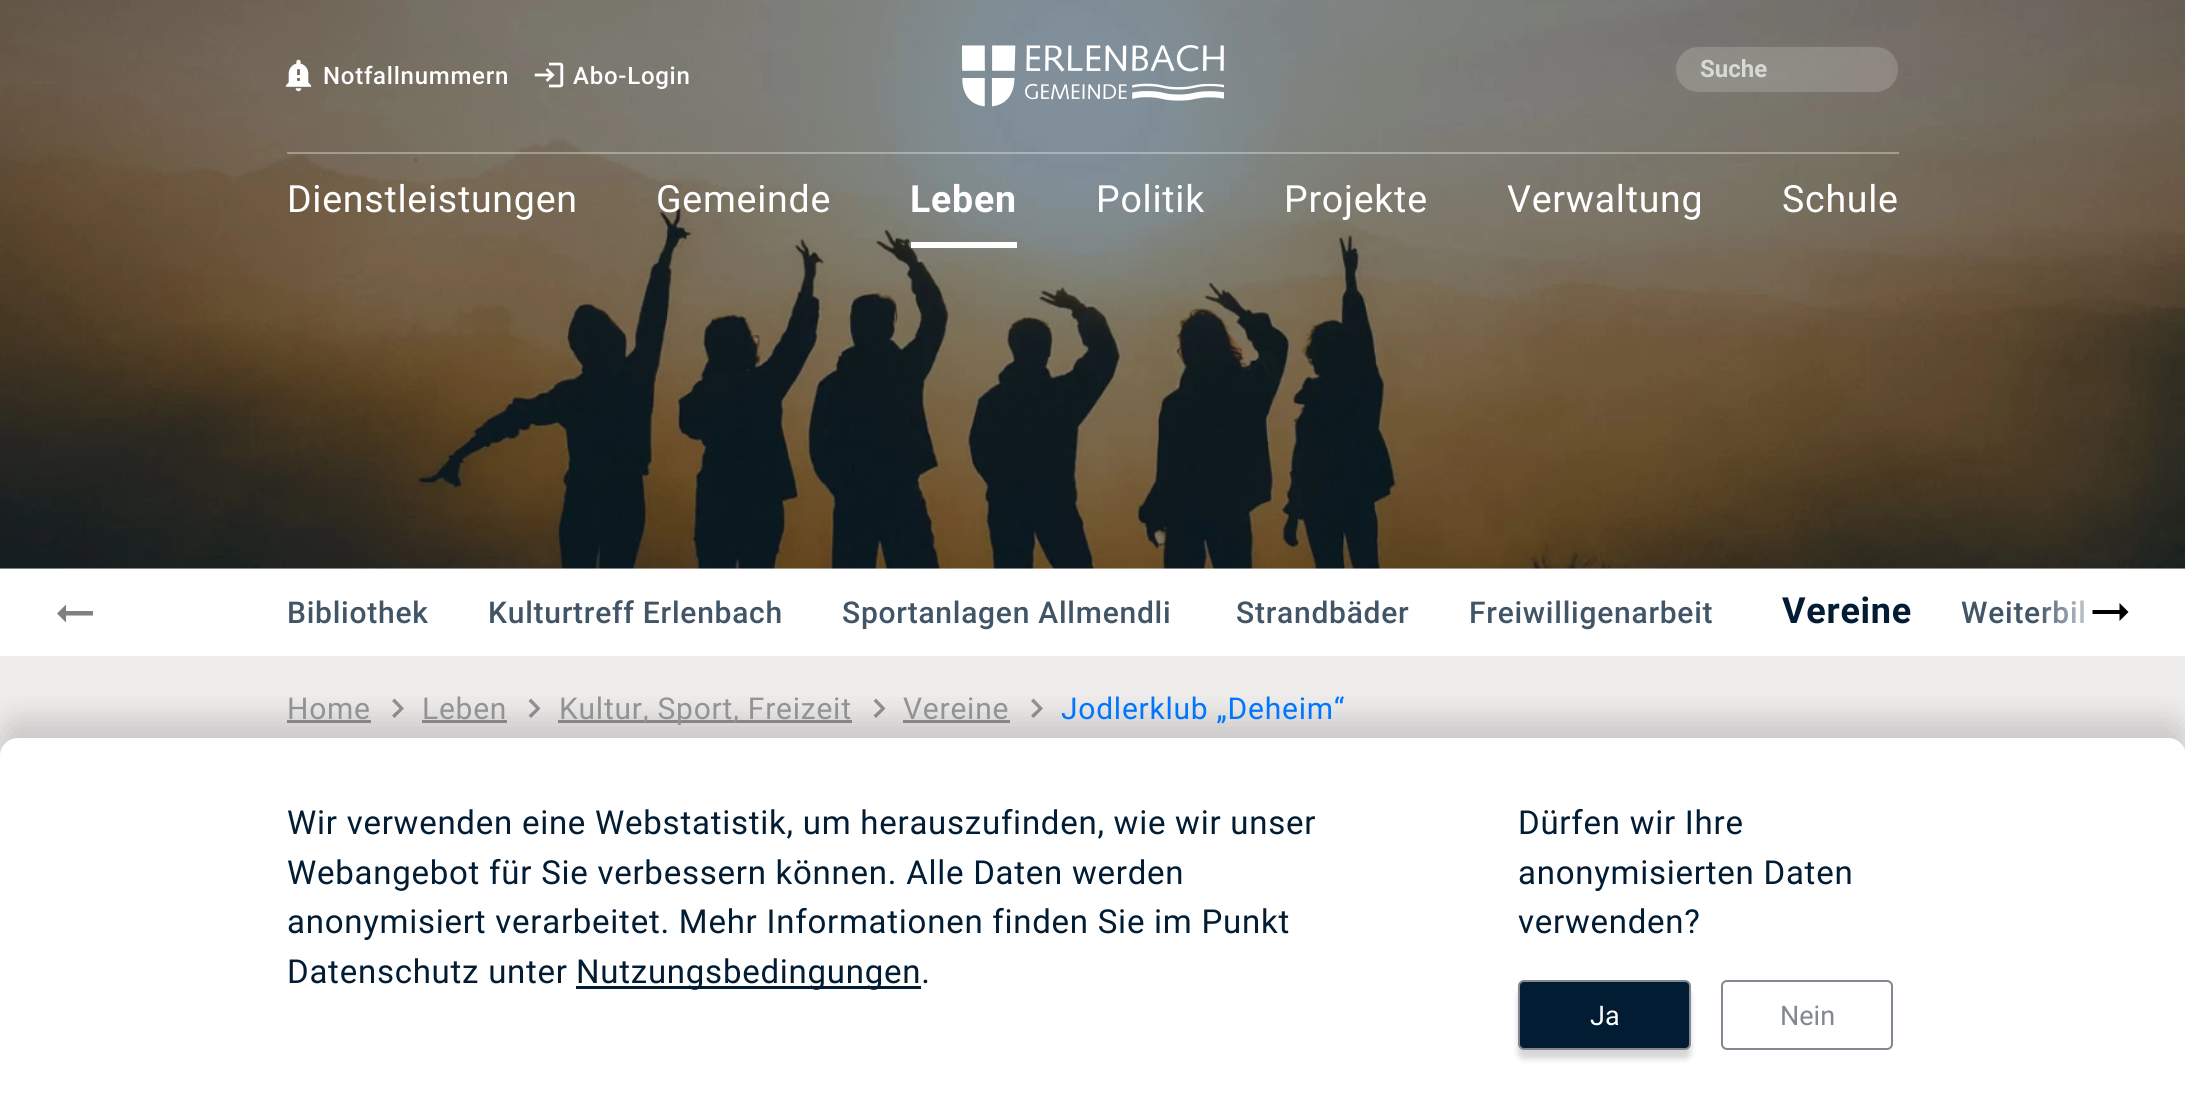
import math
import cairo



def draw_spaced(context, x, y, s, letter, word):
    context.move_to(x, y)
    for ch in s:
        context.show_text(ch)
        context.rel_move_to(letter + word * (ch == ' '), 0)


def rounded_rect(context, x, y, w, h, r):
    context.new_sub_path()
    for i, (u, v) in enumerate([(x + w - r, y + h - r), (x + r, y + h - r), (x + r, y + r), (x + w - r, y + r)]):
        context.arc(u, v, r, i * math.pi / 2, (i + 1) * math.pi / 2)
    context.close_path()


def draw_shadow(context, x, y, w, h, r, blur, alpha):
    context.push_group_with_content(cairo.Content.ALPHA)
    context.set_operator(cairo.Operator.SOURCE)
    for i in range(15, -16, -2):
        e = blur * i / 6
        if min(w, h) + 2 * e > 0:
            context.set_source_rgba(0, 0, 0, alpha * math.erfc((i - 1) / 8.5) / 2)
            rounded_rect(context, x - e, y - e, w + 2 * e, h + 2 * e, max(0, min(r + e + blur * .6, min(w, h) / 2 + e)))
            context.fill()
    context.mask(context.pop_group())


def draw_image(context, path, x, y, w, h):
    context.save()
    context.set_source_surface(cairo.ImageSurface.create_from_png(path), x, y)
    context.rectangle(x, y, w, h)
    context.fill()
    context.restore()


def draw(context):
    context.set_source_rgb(239 / 255, 236 / 255, 236 / 255)
    context.paint()
    draw_image(context, "images/1.png", 0, 0, 2185, 569)
    draw_image(context, "images/2.png", 285, 59, 27, 33)
    draw_image(context, "images/3.png", 534, 62, 30, 26)
    draw_image(context, "images/4.png", 962, 45, 262, 62)
    context.set_source_rgba(1, 1, 1, 0.17)
    rounded_rect(context, 1676, 47, 222, 45, 22.5)
    context.fill()
    rounded_rect(context, 1675, 46, 223, 46, 23)
    context.set_source_rgba(128 / 255, 128 / 255, 128 / 255, 0.17)
    context.stroke()
    context.set_source_rgba(1, 1, 1, 0.33)
    context.rectangle(287, 152, 1612, 2)
    context.fill()
    context.set_source_rgb(1, 1, 1)
    context.rectangle(911, 242, 106, 6)
    context.fill()
    context.rectangle(0, 569, 2111, 87)
    context.fill()
    context.set_source_rgb(128 / 255, 128 / 255, 128 / 255)
    context.new_path()
    context.move_to(66, 615.5)
    context.line_to(93, 615.5)
    context.line_to(93, 611)
    context.line_to(66, 611)
    context.line_to(66, 604.5)
    context.line_to(57, 613.5)
    context.line_to(66, 622.5)
    context.close_path()
    context.fill()
    context.set_source_rgb(147 / 255, 147 / 255, 147 / 255)
    context.rectangle(287, 720, 84, 3)
    context.fill()
    context.new_path()
    context.move_to(394.5, 698.5)
    context.line_to(392, 701)
    context.line_to(399.5, 708.5)
    context.line_to(392, 715.5)
    context.line_to(394.5, 718)
    context.line_to(404, 708.5)
    context.close_path()
    context.fill()
    context.rectangle(422, 720, 85, 3)
    context.fill()
    context.new_path()
    context.move_to(531, 698.5)
    context.line_to(528.5, 701)
    context.line_to(536, 708.5)
    context.line_to(528.5, 715.5)
    context.line_to(531, 718)
    context.line_to(540.5, 708.5)
    context.close_path()
    context.fill()
    context.rectangle(558, 720, 294, 3)
    context.fill()
    context.new_path()
    context.move_to(876, 698.5)
    context.line_to(873.5, 701)
    context.line_to(881, 708.5)
    context.line_to(873.5, 715.5)
    context.line_to(876, 718)
    context.line_to(885.5, 708.5)
    context.close_path()
    context.fill()
    context.rectangle(903, 720, 107, 3)
    context.fill()
    context.new_path()
    context.move_to(1033.5, 698.5)
    context.line_to(1031, 701)
    context.line_to(1038.5, 708.5)
    context.line_to(1031, 715.5)
    context.line_to(1033.5, 718)
    context.line_to(1043, 708.5)
    context.close_path()
    context.fill()
    context.set_source_rgb(0, 0, 0)
    draw_shadow(context, 0, 719, 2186, 375, 18, 15, 0.16)
    context.set_source_rgb(1, 1, 1)
    context.new_path()
    context.move_to(18, 738)
    context.line_to(2168, 738)
    context.curve_to(2178, 738, 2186, 746, 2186, 756)
    context.line_to(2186, 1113)
    context.line_to(0, 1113)
    context.line_to(0, 756)
    context.curve_to(0, 746, 8, 738, 18, 738)
    context.close_path()
    context.fill()
    context.set_source_rgb(1 / 255, 28 / 255, 51 / 255)
    context.rectangle(576, 986, 345, 3)
    context.fill()
    context.set_source_rgb(0, 0, 0)
    draw_shadow(context, 1518, 989, 173, 70, 6, 3, 0.16)
    context.set_source_rgb(1 / 255, 28 / 255, 51 / 255)
    rounded_rect(context, 1519, 981, 171, 68, 5)
    context.fill_preserve()
    context.set_source_rgb(130 / 255, 135 / 255, 145 / 255)
    context.stroke()
    rounded_rect(context, 1722, 981, 170, 68, 5)
    context.stroke()
    context.select_font_face("Roboto Medium")
    context.set_font_size(24)
    context.set_source_rgb(1, 1, 1)
    draw_spaced(context, 323, 84, "Notfallnummern", 0.75, 0)
    draw_spaced(context, 573, 84, "Abo-Login", 0.75, 0)
    context.select_font_face("Roboto", cairo.FontSlant.NORMAL, cairo.FontWeight.BOLD)
    context.set_source_rgb(216 / 255, 216 / 255, 213 / 255)
    context.move_to(1700, 77)
    context.show_text("Suche")
    context.select_font_face("Roboto")
    context.set_font_size(37.5)
    context.set_source_rgb(1, 1, 1)
    draw_spaced(context, 287, 212, "Dienstleistungen", 0.75, 0)
    draw_spaced(context, 656, 212, "Gemeinde", 0.75, 0)
    context.select_font_face("Roboto", cairo.FontSlant.NORMAL, cairo.FontWeight.BOLD)
    draw_spaced(context, 910, 212, "Leben", 0.75, 0)
    context.select_font_face("Roboto")
    draw_spaced(context, 1096, 212, "Politik", 0.75, 0)
    draw_spaced(context, 1284, 212, "Projekte", 0.75, 0)
    draw_spaced(context, 1507, 212, "Verwaltung", 0.75, 0)
    draw_spaced(context, 1782, 212, "Schule", 0.75, 0)
    context.select_font_face("Roboto Medium")
    context.set_font_size(30)
    context.set_source_rgb(65 / 255, 85 / 255, 102 / 255)
    draw_spaced(context, 287, 623, "Bibliothek", 0.75, 0)
    draw_spaced(context, 488, 623, "Kulturtreff Erlenbach", 0.75, 0)
    draw_spaced(context, 842, 623, "Sportanlagen Allmendli", 0.75, 0)
    draw_spaced(context, 1236, 623, "Strandbäder", 0.75, 0)
    draw_spaced(context, 1469, 623, "Freiwilligenarbeit", 0.75, 0)
    context.select_font_face("Roboto", cairo.FontSlant.NORMAL, cairo.FontWeight.BOLD)
    context.set_font_size(36)
    context.set_source_rgb(1 / 255, 28 / 255, 51 / 255)
    draw_spaced(context, 1782, 623, "Vereine", 0.75, 0)
    context.select_font_face("Roboto Medium")
    context.set_font_size(30)
    context.set_source_rgb(65 / 255, 85 / 255, 102 / 255)
    draw_spaced(context, 1961, 623, "Weiterbil", 0.75, 0)
    gradient = cairo.LinearGradient(2036, 612, 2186, 612)
    gradient.add_color_stop_rgba(0, 1, 1, 1, 0)
    gradient.add_color_stop_rgba(0.5, 1, 1, 1, 1)
    gradient.add_color_stop_rgba(1, 1, 1, 1, 1)
    context.set_source(gradient)
    context.rectangle(2038, 569, 147, 87)
    context.fill()
    context.set_source_rgb(0, 0, 0)
    context.new_path()
    context.move_to(2119.5, 610)
    context.line_to(2092.5, 610)
    context.line_to(2092.5, 614)
    context.line_to(2119.5, 614)
    context.line_to(2119.5, 621)
    context.line_to(2128.5, 612)
    context.line_to(2119.5, 603)
    context.close_path()
    context.fill()
    context.select_font_face("Roboto")
    context.set_source_rgb(147 / 255, 147 / 255, 147 / 255)
    draw_spaced(context, 287, 719, "Home", 0.75, 0)
    draw_spaced(context, 422, 719, "Leben", 0.75, 0)
    draw_spaced(context, 559, 719, "Kultur, Sport, Freizeit", 0.75, 0)
    draw_spaced(context, 903, 719, "Vereine", 0.75, 0)
    context.set_source_rgb(0, 118 / 255, 1)
    draw_spaced(context, 1061, 719, "Jodlerklub „Deheim“", 0.75, 0)
    context.set_font_size(33)
    context.set_source_rgb(1 / 255, 28 / 255, 51 / 255)
    draw_spaced(context, 287, 834, "Wir verwenden eine Webstatistik, um herauszufinden, wie wir unser", 0.75, 0)
    draw_spaced(context, 287, 884, "Webangebot für Sie verbessern können. Alle Daten werden", 0.75, 0)
    draw_spaced(context, 287, 933, "anonymisiert verarbeitet. Mehr Informationen finden Sie im Punkt", 0.75, 0)
    draw_spaced(context, 287, 983, "Datenschutz unter", 0.75, 0)
    draw_spaced(context, 576, 983, "Nutzungsbedingungen.", 0.75, 0)
    draw_spaced(context, 1518, 834, "Dürfen wir Ihre", 0.75, 0)
    draw_spaced(context, 1518, 884, "anonymisierten Daten", 0.75, 0)
    draw_spaced(context, 1518, 933, "verwenden?", 0.75, 0)
    context.set_font_size(27)
    context.set_source_rgb(1, 1, 1)
    context.move_to(1590, 1025)
    context.show_text("Ja")
    context.set_source_rgb(130 / 255, 135 / 255, 145 / 255)
    context.move_to(1780, 1025)
    context.show_text("Nein")


surface = cairo.ImageSurface(cairo.Format.RGB24, 2185, 1112)
context = cairo.Context(surface)
options = cairo.FontOptions()
options.set_hint_metrics(cairo.HintMetrics.OFF)
options.set_hint_style(cairo.HintStyle.NONE)
context.set_font_options(options)
context.set_miter_limit(4)
draw(context)
surface.write_to_png("out.png")
